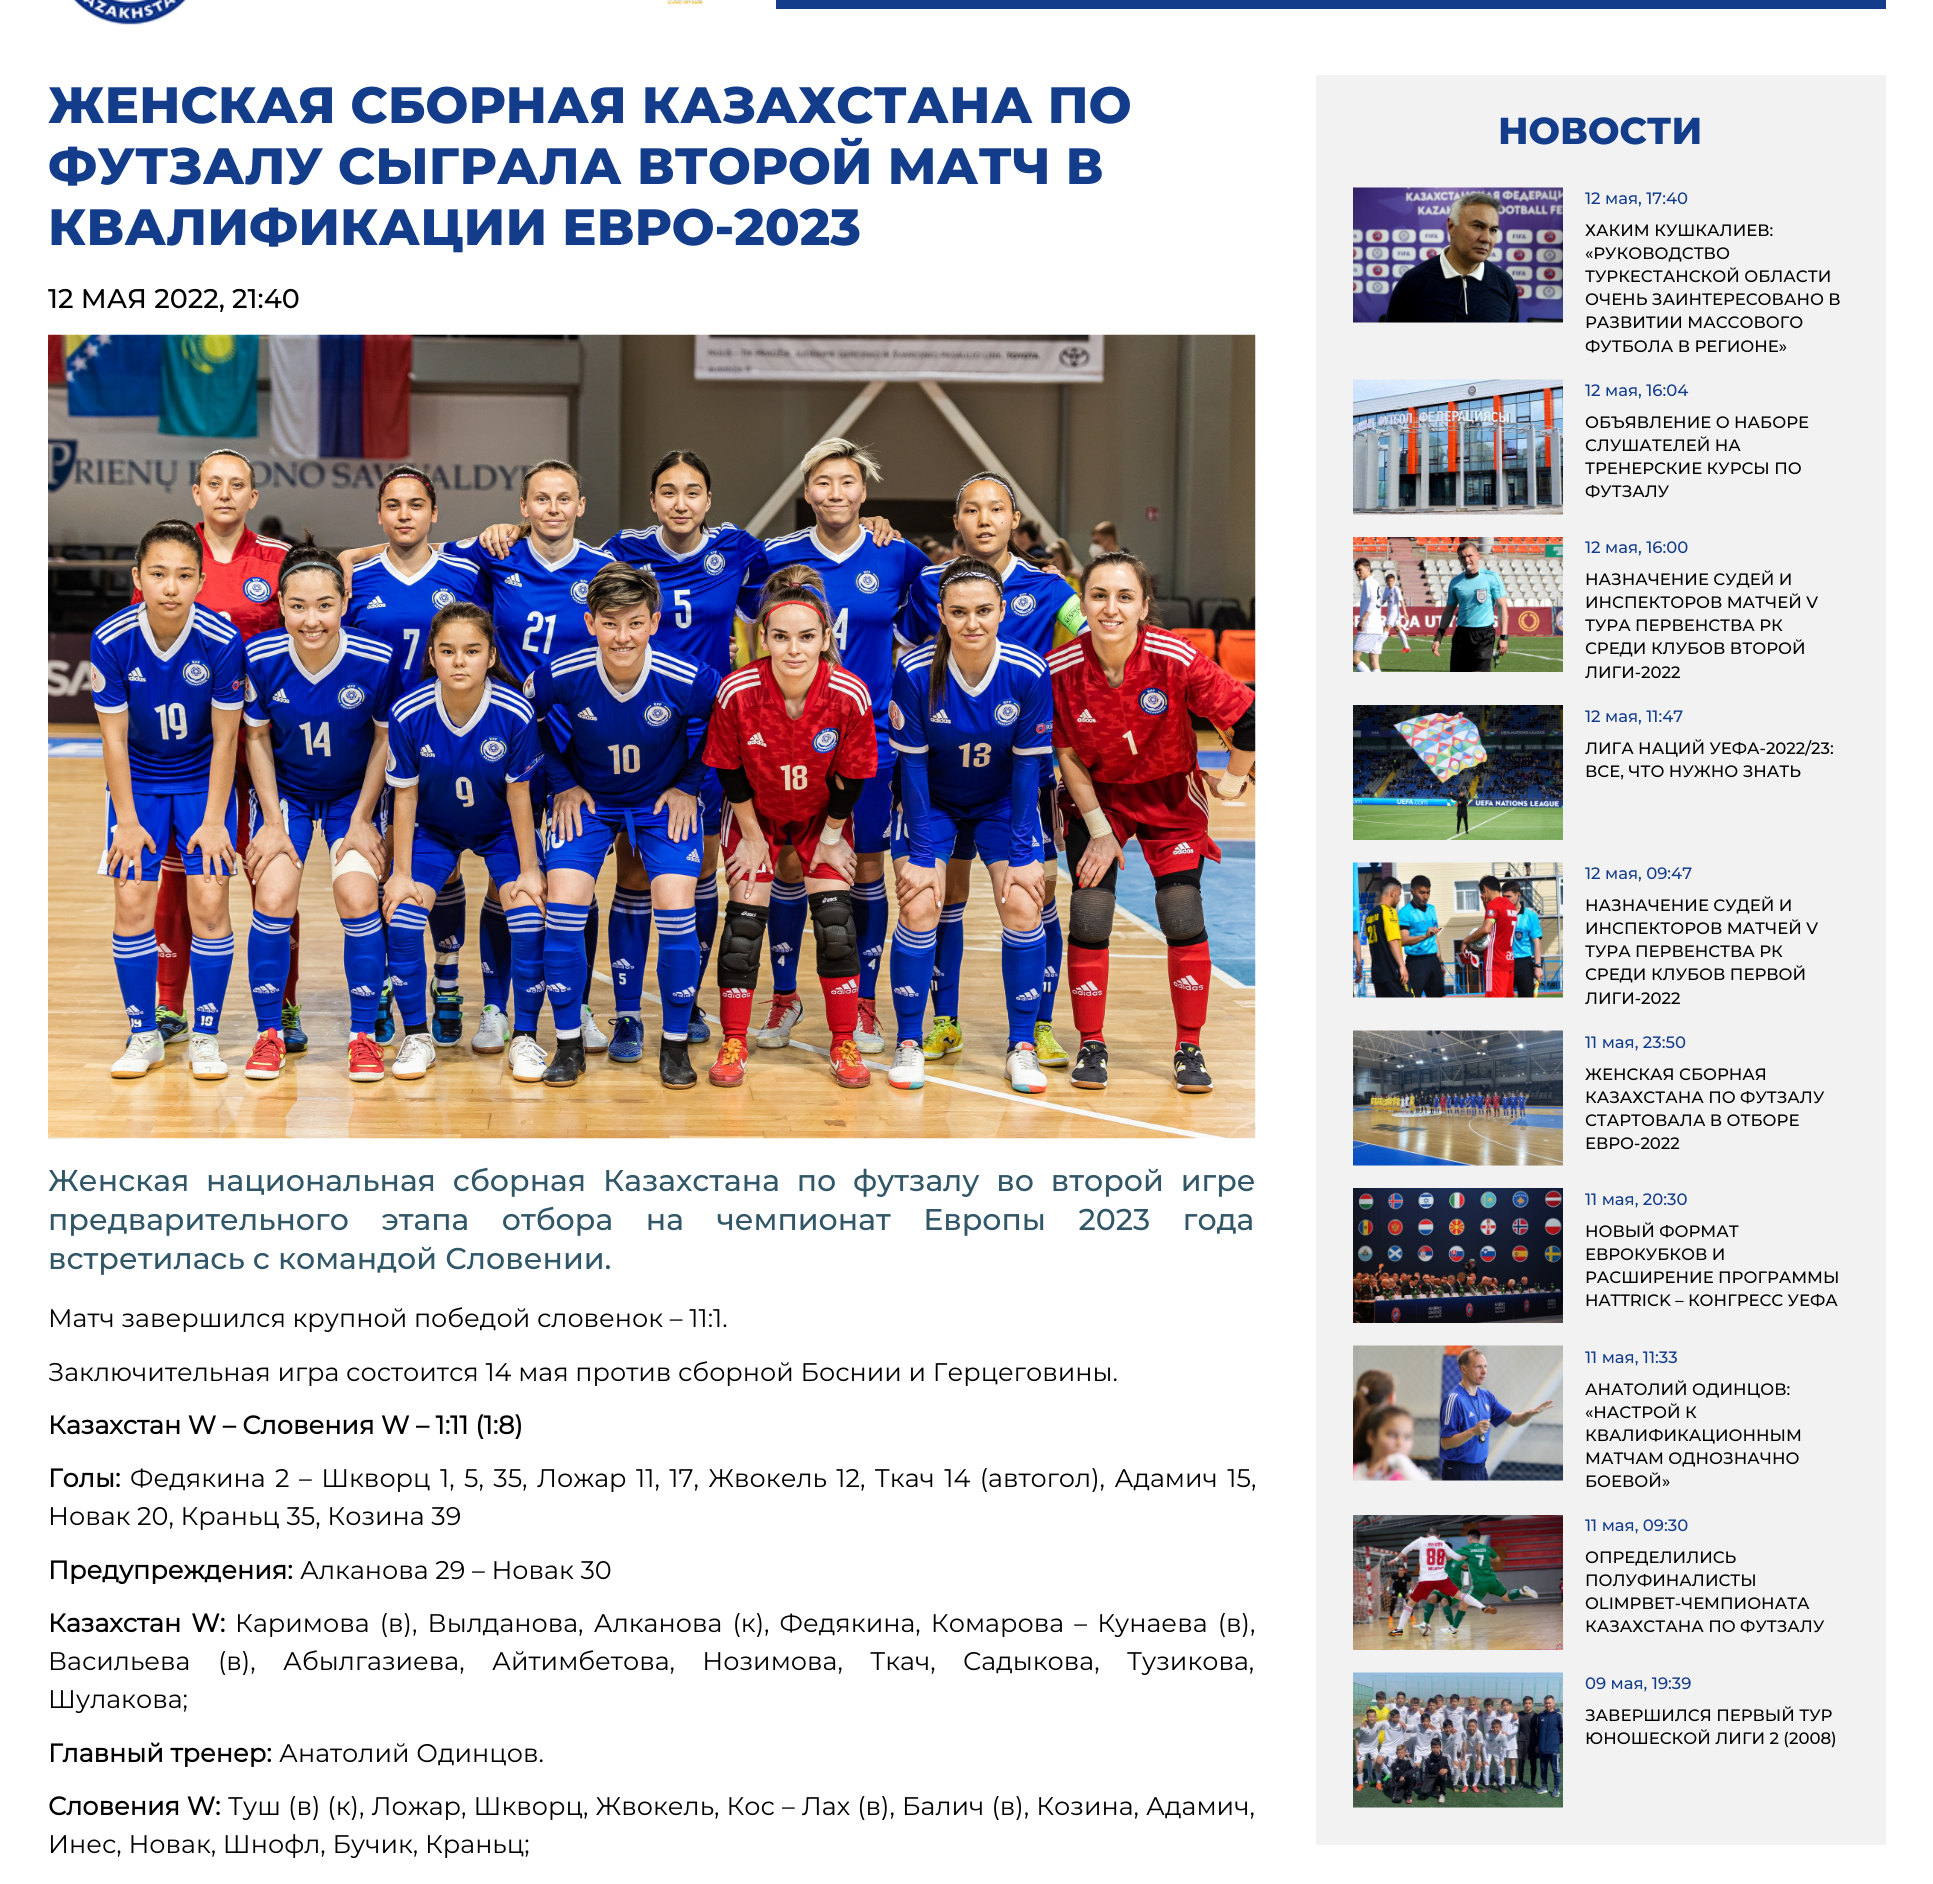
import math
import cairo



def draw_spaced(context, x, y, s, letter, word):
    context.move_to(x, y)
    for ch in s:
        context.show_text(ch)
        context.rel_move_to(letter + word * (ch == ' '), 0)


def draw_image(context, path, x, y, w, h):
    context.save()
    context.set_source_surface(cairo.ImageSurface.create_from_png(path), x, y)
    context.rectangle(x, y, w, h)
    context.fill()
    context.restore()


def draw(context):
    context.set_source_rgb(1, 1, 1)
    context.paint()
    draw_image(context, "images/1.png", 73, 0, 114, 25)
    draw_image(context, "images/2.png", 667, 0, 36, 5)
    context.set_source_rgb(19 / 255, 60 / 255, 139 / 255)
    context.rectangle(776, 0, 1110, 9)
    context.fill()
    draw_image(context, "images/3.png", 48, 334, 1208, 805)
    context.set_source_rgb(242 / 255, 242 / 255, 242 / 255)
    context.rectangle(1316, 75, 570, 1770)
    context.fill()
    context.set_source_rgb(238 / 255, 238 / 255, 238 / 255)
    context.rectangle(1353, 322, 210, 1)
    context.fill()
    draw_image(context, "images/4.png", 1353, 187, 210, 136)
    context.rectangle(1353, 514, 210, 1)
    context.fill()
    draw_image(context, "images/5.png", 1353, 379, 210, 136)
    draw_image(context, "images/6.png", 1353, 537, 210, 135)
    draw_image(context, "images/7.png", 1353, 705, 210, 135)
    context.rectangle(1353, 997, 210, 1)
    context.fill()
    draw_image(context, "images/8.png", 1353, 862, 210, 136)
    context.rectangle(1353, 1165, 210, 1)
    context.fill()
    draw_image(context, "images/9.png", 1353, 1030, 210, 136)
    draw_image(context, "images/10.png", 1353, 1188, 210, 135)
    context.rectangle(1353, 1480, 210, 1)
    context.fill()
    draw_image(context, "images/11.png", 1353, 1345, 210, 136)
    draw_image(context, "images/12.png", 1353, 1515, 210, 135)
    context.rectangle(1353, 1807, 210, 1)
    context.fill()
    draw_image(context, "images/13.png", 1353, 1672, 210, 136)
    context.select_font_face("Montserrat ExtraBold")
    context.set_font_size(51)
    context.set_source_rgb(19 / 255, 60 / 255, 139 / 255)
    context.move_to(48, 123)
    context.show_text("ЖЕНСКАЯ СБОРНАЯ КАЗАХСТАНА ПО")
    context.move_to(48, 184)
    context.show_text("ФУТЗАЛУ СЫГРАЛА ВТОРОЙ МАТЧ В")
    context.move_to(48, 245)
    context.show_text("КВАЛИФИКАЦИИ ЕВРО-2023")
    context.select_font_face("Montserrat Medium")
    context.set_font_size(27)
    context.set_source_rgb(0, 0, 0)
    context.move_to(48, 308)
    context.show_text("12 МАЯ 2022, 21:40")
    context.set_font_size(30)
    context.set_source_rgb(49 / 255, 86 / 255, 103 / 255)
    draw_spaced(context, 48, 1191, "Женская национальная сборная Казахстана по футзалу во второй игре", 0, 8.75)
    draw_spaced(context, 48, 1230, "предварительного этапа отбора на чемпионат Европы 2023 года", 0, 24.5)
    context.move_to(48, 1269)
    context.show_text("встретилась с командой Словении.")
    context.select_font_face("Montserrat")
    context.set_font_size(25.5)
    context.set_source_rgb(0, 0, 0)
    context.move_to(48, 1327)
    context.show_text("Матч завершился крупной победой словенок – 11:1.")
    context.move_to(48, 1381)
    context.show_text("Заключительная игра состоится 14 мая против сборной Боснии и Герцеговины.")
    context.select_font_face("Montserrat", cairo.FontSlant.NORMAL, cairo.FontWeight.BOLD)
    context.move_to(48, 1434)
    context.show_text("Казахстан W – Словения W – 1:11 (1:8)")
    context.move_to(48, 1487)
    context.show_text("Голы:")
    context.select_font_face("Montserrat")
    draw_spaced(context, 130, 1487, "Федякина 2 – Шкворц 1, 5, 35, Ложар 11, 17, Жвокель 12, Ткач 14 (автогол), Адамич 15,", 0, 2.75)
    context.move_to(48, 1525)
    context.show_text("Новак 20, Краньц 35, Козина 39")
    context.select_font_face("Montserrat", cairo.FontSlant.NORMAL, cairo.FontWeight.BOLD)
    context.move_to(48, 1579)
    context.show_text("Предупреждения:")
    context.select_font_face("Montserrat")
    context.move_to(300, 1579)
    context.show_text("Алканова 29 – Новак 30")
    context.select_font_face("Montserrat", cairo.FontSlant.NORMAL, cairo.FontWeight.BOLD)
    draw_spaced(context, 48, 1632, "Казахстан W:", 0, 3.5)
    context.select_font_face("Montserrat")
    draw_spaced(context, 235, 1632, "Каримова (в), Вылданова, Алканова (к), Федякина, Комарова – Кунаева (в),", 0, 3.5)
    draw_spaced(context, 48, 1670, "Васильева (в), Абылгазиева, Айтимбетова, Нозимова, Ткач, Садыкова, Тузикова,", 0, 20.75)
    context.move_to(48, 1708)
    context.show_text("Шулакова;")
    context.select_font_face("Montserrat", cairo.FontSlant.NORMAL, cairo.FontWeight.BOLD)
    context.move_to(48, 1762)
    context.show_text("Главный тренер:")
    context.select_font_face("Montserrat")
    context.move_to(279, 1762)
    context.show_text("Анатолий Одинцов.")
    context.select_font_face("Montserrat", cairo.FontSlant.NORMAL, cairo.FontWeight.BOLD)
    context.move_to(48, 1815)
    context.show_text("Словения W:")
    context.select_font_face("Montserrat")
    draw_spaced(context, 228, 1815, "Туш (в) (к), Ложар, Шкворц, Жвокель, Кос – Лах (в), Балич (в), Козина, Адамич,", 0, 0.4)
    context.move_to(48, 1853)
    context.show_text("Инес, Новак, Шнофл, Бучик, Краньц;")
    context.select_font_face("Montserrat ExtraBold")
    context.set_font_size(37.5)
    context.set_source_rgb(19 / 255, 60 / 255, 139 / 255)
    context.move_to(1498, 144)
    context.show_text("НОВОСТИ")
    context.select_font_face("Montserrat Medium")
    context.set_font_size(16.5)
    context.move_to(1585, 204)
    context.show_text("12 мая, 17:40")
    context.set_source_rgb(0, 0, 0)
    context.move_to(1585, 236)
    context.show_text("ХАКИМ КУШКАЛИЕВ:")
    context.move_to(1585, 259)
    context.show_text("«РУКОВОДСТВО")
    context.move_to(1585, 282)
    context.show_text("ТУРКЕСТАНСКОЙ ОБЛАСТИ")
    context.move_to(1585, 305)
    context.show_text("ОЧЕНЬ ЗАИНТЕРЕСОВАНО В")
    context.move_to(1585, 328)
    context.show_text("РАЗВИТИИ МАССОВОГО")
    context.move_to(1585, 352)
    context.show_text("ФУТБОЛА В РЕГИОНЕ»")
    context.set_source_rgb(19 / 255, 60 / 255, 139 / 255)
    context.move_to(1585, 396)
    context.show_text("12 мая, 16:04")
    context.set_source_rgb(0, 0, 0)
    context.move_to(1585, 428)
    context.show_text("ОБЪЯВЛЕНИЕ О НАБОРЕ")
    context.move_to(1585, 451)
    context.show_text("СЛУШАТЕЛЕЙ НА")
    context.move_to(1585, 474)
    context.show_text("ТРЕНЕРСКИЕ КУРСЫ ПО")
    context.move_to(1585, 497)
    context.show_text("ФУТЗАЛУ")
    context.set_source_rgb(19 / 255, 60 / 255, 139 / 255)
    context.move_to(1585, 553)
    context.show_text("12 мая, 16:00")
    context.set_source_rgb(0, 0, 0)
    context.move_to(1585, 585)
    context.show_text("НАЗНАЧЕНИЕ СУДЕЙ И")
    context.move_to(1585, 608)
    context.show_text("ИНСПЕКТОРОВ МАТЧЕЙ V")
    context.move_to(1585, 631)
    context.show_text("ТУРА ПЕРВЕНСТВА РК")
    context.move_to(1585, 654)
    context.show_text("СРЕДИ КЛУБОВ ВТОРОЙ")
    context.move_to(1585, 678)
    context.show_text("ЛИГИ-2022")
    context.set_source_rgb(19 / 255, 60 / 255, 139 / 255)
    context.move_to(1585, 722)
    context.show_text("12 мая, 11:47")
    context.set_source_rgb(0, 0, 0)
    context.move_to(1585, 754)
    context.show_text("ЛИГА НАЦИЙ УЕФА-2022/23:")
    context.move_to(1585, 777)
    context.show_text("ВСЕ, ЧТО НУЖНО ЗНАТЬ")
    context.set_source_rgb(19 / 255, 60 / 255, 139 / 255)
    context.move_to(1585, 879)
    context.show_text("12 мая, 09:47")
    context.set_source_rgb(0, 0, 0)
    context.move_to(1585, 911)
    context.show_text("НАЗНАЧЕНИЕ СУДЕЙ И")
    context.move_to(1585, 934)
    context.show_text("ИНСПЕКТОРОВ МАТЧЕЙ V")
    context.move_to(1585, 957)
    context.show_text("ТУРА ПЕРВЕНСТВА РК")
    context.move_to(1585, 980)
    context.show_text("СРЕДИ КЛУБОВ ПЕРВОЙ")
    context.move_to(1585, 1004)
    context.show_text("ЛИГИ-2022")
    context.set_source_rgb(19 / 255, 60 / 255, 139 / 255)
    context.move_to(1585, 1048)
    context.show_text("11 мая, 23:50")
    context.set_source_rgb(0, 0, 0)
    context.move_to(1585, 1080)
    context.show_text("ЖЕНСКАЯ СБОРНАЯ")
    context.move_to(1585, 1103)
    context.show_text("КАЗАХСТАНА ПО ФУТЗАЛУ")
    context.move_to(1585, 1126)
    context.show_text("СТАРТОВАЛА В ОТБОРЕ")
    context.move_to(1585, 1149)
    context.show_text("ЕВРО-2022")
    context.set_source_rgb(19 / 255, 60 / 255, 139 / 255)
    context.move_to(1585, 1205)
    context.show_text("11 мая, 20:30")
    context.set_source_rgb(0, 0, 0)
    context.move_to(1585, 1237)
    context.show_text("НОВЫЙ ФОРМАТ")
    context.move_to(1585, 1260)
    context.show_text("ЕВРОКУБКОВ И")
    context.move_to(1585, 1283)
    context.show_text("РАСШИРЕНИЕ ПРОГРАММЫ")
    context.move_to(1585, 1306)
    context.show_text("HATTRICK – КОНГРЕСС УЕФА")
    context.set_source_rgb(19 / 255, 60 / 255, 139 / 255)
    context.move_to(1585, 1363)
    context.show_text("11 мая, 11:33")
    context.set_source_rgb(0, 0, 0)
    context.move_to(1585, 1395)
    context.show_text("АНАТОЛИЙ ОДИНЦОВ:")
    context.move_to(1585, 1418)
    context.show_text("«НАСТРОЙ К")
    context.move_to(1585, 1441)
    context.show_text("КВАЛИФИКАЦИОННЫМ")
    context.move_to(1585, 1464)
    context.show_text("МАТЧАМ ОДНОЗНАЧНО")
    context.move_to(1585, 1487)
    context.show_text("БОЕВОЙ»")
    context.set_source_rgb(19 / 255, 60 / 255, 139 / 255)
    context.move_to(1585, 1531)
    context.show_text("11 мая, 09:30")
    context.set_source_rgb(0, 0, 0)
    context.move_to(1585, 1563)
    context.show_text("ОПРЕДЕЛИЛИСЬ")
    context.move_to(1585, 1586)
    context.show_text("ПОЛУФИНАЛИСТЫ")
    context.move_to(1585, 1609)
    context.show_text("OLIMPBET-ЧЕМПИОНАТА")
    context.move_to(1585, 1632)
    context.show_text("КАЗАХСТАНА ПО ФУТЗАЛУ")
    context.set_source_rgb(19 / 255, 60 / 255, 139 / 255)
    context.move_to(1585, 1689)
    context.show_text("09 мая, 19:39")
    context.set_source_rgb(0, 0, 0)
    context.move_to(1585, 1721)
    context.show_text("ЗАВЕРШИЛСЯ ПЕРВЫЙ ТУР")
    context.move_to(1585, 1744)
    context.show_text("ЮНОШЕСКОЙ ЛИГИ 2 (2008)")


surface = cairo.ImageSurface(cairo.Format.RGB24, 1933, 1884)
context = cairo.Context(surface)
options = cairo.FontOptions()
options.set_hint_metrics(cairo.HintMetrics.OFF)
options.set_hint_style(cairo.HintStyle.NONE)
context.set_font_options(options)
context.set_miter_limit(4)
draw(context)
surface.write_to_png("out.png")
